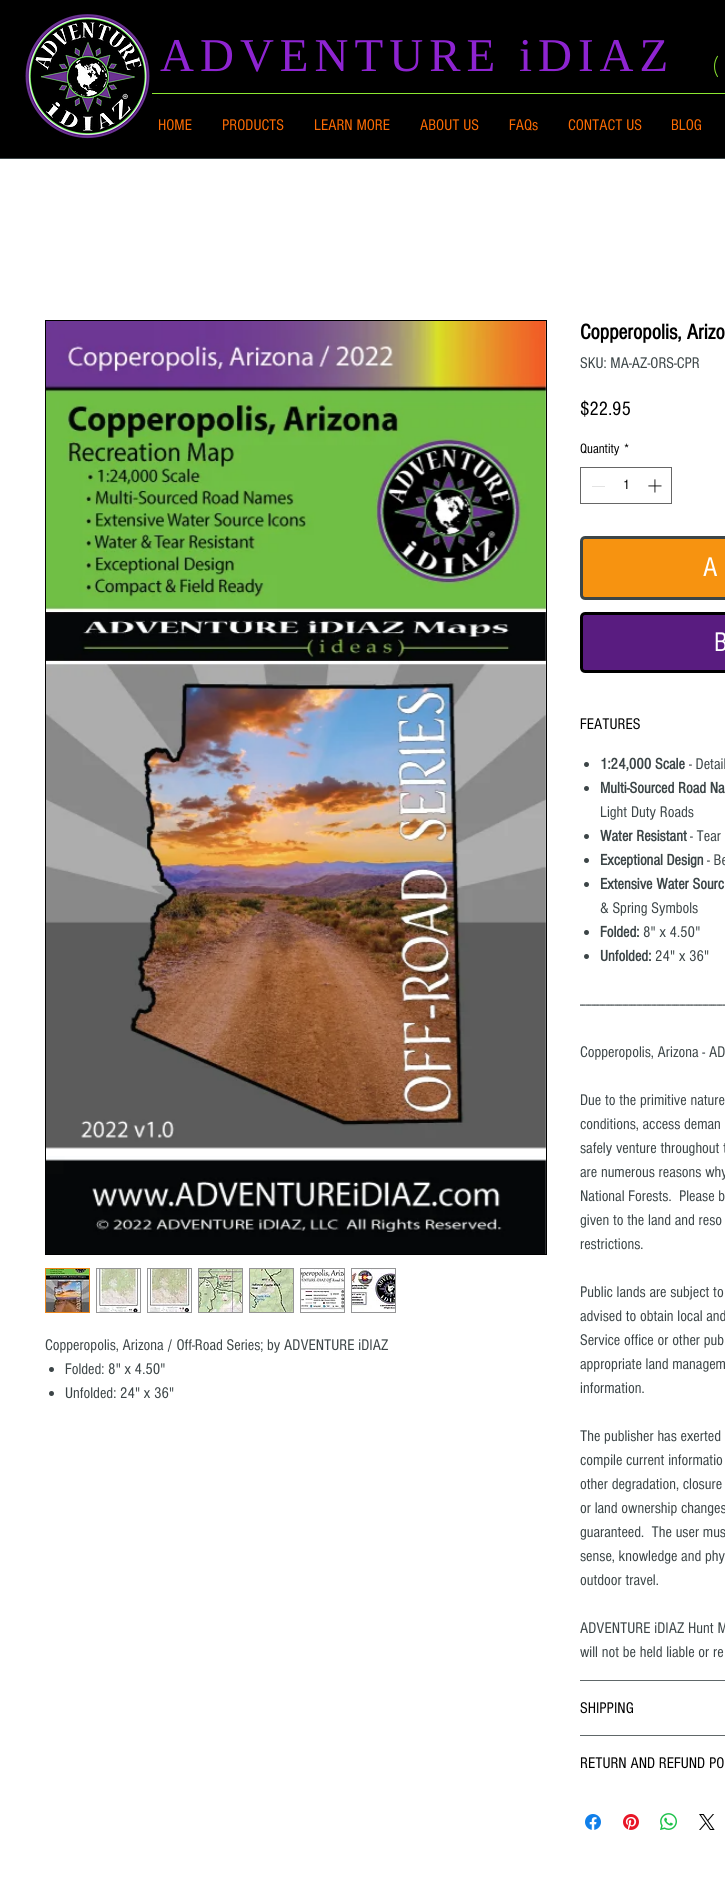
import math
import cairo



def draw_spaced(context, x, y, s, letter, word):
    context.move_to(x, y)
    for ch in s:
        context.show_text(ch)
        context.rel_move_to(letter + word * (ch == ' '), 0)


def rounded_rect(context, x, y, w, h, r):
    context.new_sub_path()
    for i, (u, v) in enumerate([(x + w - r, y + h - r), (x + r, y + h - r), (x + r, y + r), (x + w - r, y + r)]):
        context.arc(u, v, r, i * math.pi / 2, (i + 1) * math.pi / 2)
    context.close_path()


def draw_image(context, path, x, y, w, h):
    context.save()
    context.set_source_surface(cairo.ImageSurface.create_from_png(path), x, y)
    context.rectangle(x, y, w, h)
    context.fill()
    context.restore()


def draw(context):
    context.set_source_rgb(1, 1, 1)
    context.paint()
    context.set_source_rgb(60 / 255, 69 / 255, 71 / 255)
    context.rectangle(0, 158, 725, 1)
    context.fill()
    context.set_source_rgb(0, 0, 0)
    context.rectangle(0, 0, 725, 158)
    context.fill()
    draw_image(context, "images/1.png", 25, 14, 125, 125)
    context.set_source_rgb(140 / 255, 232 / 255, 49 / 255)
    context.rectangle(152, 93, 573, 1)
    context.fill()
    context.rectangle(45.5, 320.5, 501, 934)
    context.set_source_rgb(0, 0, 0)
    context.set_line_width(1)
    context.stroke()
    draw_image(context, "images/2.png", 46, 321, 500, 933)
    context.rectangle(45.5, 1268.5, 44, 44)
    context.set_source_rgb(236 / 255, 134 / 255, 25 / 255)
    context.stroke()
    draw_image(context, "images/3.png", 46, 1269, 43, 43)
    context.set_source_rgb(149 / 255, 149 / 255, 150 / 255)
    context.rectangle(96, 1268, 45, 45)
    context.fill()
    draw_image(context, "images/4.png", 97, 1269, 43, 43)
    context.rectangle(147, 1268, 45, 45)
    context.fill()
    draw_image(context, "images/5.png", 148, 1269, 43, 43)
    context.rectangle(198, 1268, 45, 45)
    context.fill()
    draw_image(context, "images/6.png", 199, 1269, 43, 43)
    context.rectangle(249, 1268, 45, 45)
    context.fill()
    draw_image(context, "images/7.png", 250, 1269, 43, 43)
    context.rectangle(300, 1268, 45, 45)
    context.fill()
    draw_image(context, "images/8.png", 301, 1269, 43, 43)
    context.rectangle(351, 1268, 45, 45)
    context.fill()
    draw_image(context, "images/9.png", 352, 1269, 43, 43)
    context.set_source_rgb(60 / 255, 69 / 255, 71 / 255)
    context.arc(51.5, 1369.5, 2.5, 0, 2 * math.pi)
    context.fill()
    context.arc(51.5, 1393.5, 2.5, 0, 2 * math.pi)
    context.fill()
    context.rectangle(580.5, 467.5, 91, 36)
    context.set_source_rgb(102 / 255, 102 / 255, 102 / 255)
    context.stroke()
    context.set_source_rgb(227 / 255, 227 / 255, 227 / 255)
    context.rectangle(592, 486, 13, 1)
    context.fill()
    draw_image(context, "images/10.png", 648, 479, 14, 14)
    context.set_source_rgb(247 / 255, 147 / 255, 16 / 255)
    rounded_rect(context, 581.5, 537.5, 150, 61, 3.5)
    context.fill_preserve()
    context.set_source_rgb(60 / 255, 69 / 255, 71 / 255)
    context.set_line_width(3)
    context.stroke()
    context.set_source_rgb(89 / 255, 28 / 255, 128 / 255)
    rounded_rect(context, 581.5, 613.5, 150, 58, 3.5)
    context.fill_preserve()
    context.set_source_rgb(0, 0, 0)
    context.stroke()
    context.set_source_rgb(96 / 255, 103 / 255, 105 / 255)
    context.rectangle(580, 1680, 145, 1)
    context.fill()
    context.set_source_rgb(60 / 255, 69 / 255, 71 / 255)
    context.arc(586.5, 764.5, 2.5, 0, 2 * math.pi)
    context.fill()
    context.arc(586.5, 788.5, 2.5, 0, 2 * math.pi)
    context.fill()
    context.arc(586.5, 836.5, 2.5, 0, 2 * math.pi)
    context.fill()
    context.arc(586.5, 860.5, 2.5, 0, 2 * math.pi)
    context.fill()
    context.arc(586.5, 884.5, 2.5, 0, 2 * math.pi)
    context.fill()
    context.arc(586.5, 932.5, 2.5, 0, 2 * math.pi)
    context.fill()
    context.arc(586.5, 956.5, 2.5, 0, 2 * math.pi)
    context.fill()
    context.set_source_rgb(96 / 255, 103 / 255, 105 / 255)
    context.rectangle(580, 1735, 145, 1)
    context.fill()
    draw_image(context, "images/11.png", 585, 1814, 16, 16)
    draw_image(context, "images/12.png", 623, 1814, 16, 16)
    draw_image(context, "images/13.png", 660, 1813, 17, 17)
    draw_image(context, "images/14.png", 699, 1814, 16, 16)
    context.select_font_face("Liberation Serif")
    context.set_font_size(47)
    context.set_source_rgb(142 / 255, 36 / 255, 209 / 255)
    draw_spaced(context, 160, 71, "ADVENTURE iDIAZ", 6, 0)
    context.select_font_face("Lato Light")
    context.set_font_size(24)
    context.set_source_rgb(140 / 255, 232 / 255, 49 / 255)
    draw_spaced(context, 712, 74, "(", 7, 0)
    context.select_font_face("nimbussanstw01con")
    context.set_font_size(16)
    context.set_source_rgb(252 / 255, 107 / 255, 3 / 255)
    context.move_to(158, 130)
    context.show_text("HOME")
    context.move_to(222, 130)
    context.show_text("PRODUCTS")
    context.move_to(314, 130)
    context.show_text("LEARN MORE")
    context.move_to(420, 130)
    context.show_text("ABOUT US")
    context.move_to(509, 130)
    context.show_text("FAQs")
    context.move_to(568, 130)
    context.show_text("CONTACT US")
    context.move_to(671, 130)
    context.show_text("BLOG")
    context.set_source_rgb(60 / 255, 69 / 255, 71 / 255)
    context.move_to(45, 1350)
    context.show_text("Copperopolis, Arizona / Off-Road Series; by ADVENTURE iDIAZ")
    context.move_to(65, 1374)
    context.show_text("Folded: 8\" x 4.50\"")
    context.move_to(65, 1398)
    context.show_text("Unfolded: 24\" x 36\"")
    context.select_font_face("nimbussanstw01con", cairo.FontSlant.NORMAL, cairo.FontWeight.BOLD)
    context.set_font_size(22)
    context.set_source_rgb(0, 0, 0)
    context.move_to(580, 339)
    context.show_text("Copperopolis, Arizo")
    context.select_font_face("nimbussanstw01con")
    context.set_font_size(16)
    context.set_source_rgb(60 / 255, 69 / 255, 71 / 255)
    context.move_to(580, 368)
    context.show_text("SKU: MA-AZ-ORS-CPR")
    context.set_font_size(20)
    context.set_source_rgb(0, 0, 0)
    context.move_to(580, 415)
    context.show_text("$22.95")
    context.set_font_size(14)
    context.move_to(580, 453)
    context.show_text("Quantity")
    context.move_to(624, 453)
    context.show_text("*")
    context.move_to(623, 489)
    context.show_text("1")
    context.set_font_size(28)
    context.set_source_rgb(1, 1, 1)
    context.move_to(703, 576)
    context.show_text("A")
    context.move_to(714, 651)
    context.show_text("B")
    context.set_font_size(16)
    context.set_source_rgb(0, 0, 0)
    context.move_to(580, 729)
    context.show_text("FEATURES")
    context.select_font_face("nimbussanstw01con", cairo.FontSlant.NORMAL, cairo.FontWeight.BOLD)
    context.set_source_rgb(60 / 255, 69 / 255, 71 / 255)
    context.move_to(600, 769)
    context.show_text("1:24,000 Scale")
    context.select_font_face("nimbussanstw01con")
    context.move_to(689, 769)
    context.show_text("- Detail")
    context.select_font_face("nimbussanstw01con", cairo.FontSlant.NORMAL, cairo.FontWeight.BOLD)
    context.move_to(600, 793)
    context.show_text("Multi-Sourced Road Na")
    context.select_font_face("nimbussanstw01con")
    context.move_to(600, 817)
    context.show_text("Light Duty Roads")
    context.select_font_face("nimbussanstw01con", cairo.FontSlant.NORMAL, cairo.FontWeight.BOLD)
    context.move_to(600, 841)
    context.show_text("Water Resistant")
    context.select_font_face("nimbussanstw01con")
    context.move_to(690, 841)
    context.show_text("- Tear")
    context.select_font_face("nimbussanstw01con", cairo.FontSlant.NORMAL, cairo.FontWeight.BOLD)
    context.move_to(600, 865)
    context.show_text("Exceptional Design")
    context.select_font_face("nimbussanstw01con")
    context.move_to(707, 865)
    context.show_text("- Be")
    context.select_font_face("nimbussanstw01con", cairo.FontSlant.NORMAL, cairo.FontWeight.BOLD)
    context.move_to(600, 889)
    context.show_text("Extensive Water Sourc")
    context.select_font_face("nimbussanstw01con")
    context.move_to(600, 913)
    context.show_text("& Spring Symbols")
    context.select_font_face("nimbussanstw01con", cairo.FontSlant.NORMAL, cairo.FontWeight.BOLD)
    context.move_to(600, 937)
    context.show_text("Folded:")
    context.select_font_face("nimbussanstw01con")
    context.move_to(643, 937)
    context.show_text("8\" x 4.50\"")
    context.select_font_face("nimbussanstw01con", cairo.FontSlant.NORMAL, cairo.FontWeight.BOLD)
    context.move_to(600, 961)
    context.show_text("Unfolded:")
    context.select_font_face("nimbussanstw01con")
    context.move_to(655, 961)
    context.show_text("24\" x 36\"")
    context.move_to(580, 1009)
    context.show_text("---------------------------------------------------")
    context.move_to(580, 1057)
    context.show_text("Copperopolis, Arizona - AD")
    context.move_to(580, 1105)
    context.show_text("Due to the primitive nature")
    context.move_to(580, 1129)
    context.show_text("conditions, access deman")
    context.move_to(580, 1153)
    context.show_text("safely venture throughout t")
    context.move_to(580, 1177)
    context.show_text("are numerous reasons why")
    context.move_to(580, 1201)
    context.show_text("National Forests.  Please b")
    context.move_to(580, 1225)
    context.show_text("given to the land and reso")
    context.move_to(580, 1249)
    context.show_text("restrictions.")
    context.move_to(580, 1297)
    context.show_text("Public lands are subject to")
    context.move_to(580, 1321)
    context.show_text("advised to obtain local and")
    context.move_to(580, 1345)
    context.show_text("Service office or other pub")
    context.move_to(580, 1369)
    context.show_text("appropriate land managem")
    context.move_to(580, 1393)
    context.show_text("information.")
    context.move_to(580, 1441)
    context.show_text("The publisher has exerted")
    context.move_to(580, 1465)
    context.show_text("compile current informatio")
    context.move_to(580, 1489)
    context.show_text("other degradation, closure")
    context.move_to(580, 1513)
    context.show_text("or land ownership changes")
    context.move_to(580, 1537)
    context.show_text("guaranteed.  The user mus")
    context.move_to(580, 1561)
    context.show_text("sense, knowledge and phy")
    context.move_to(580, 1585)
    context.show_text("outdoor travel.")
    context.move_to(580, 1633)
    context.show_text("ADVENTURE iDIAZ Hunt M")
    context.move_to(580, 1657)
    context.show_text("will not be held liable or re")
    context.set_source_rgb(0, 0, 0)
    context.move_to(580, 1713)
    context.show_text("SHIPPING")
    context.move_to(580, 1768)
    context.show_text("RETURN AND REFUND PO")


surface = cairo.ImageSurface(cairo.Format.RGB24, 725, 1903)
context = cairo.Context(surface)
options = cairo.FontOptions()
options.set_hint_metrics(cairo.HintMetrics.OFF)
options.set_hint_style(cairo.HintStyle.NONE)
context.set_font_options(options)
context.set_miter_limit(4)
draw(context)
surface.write_to_png("out.png")
